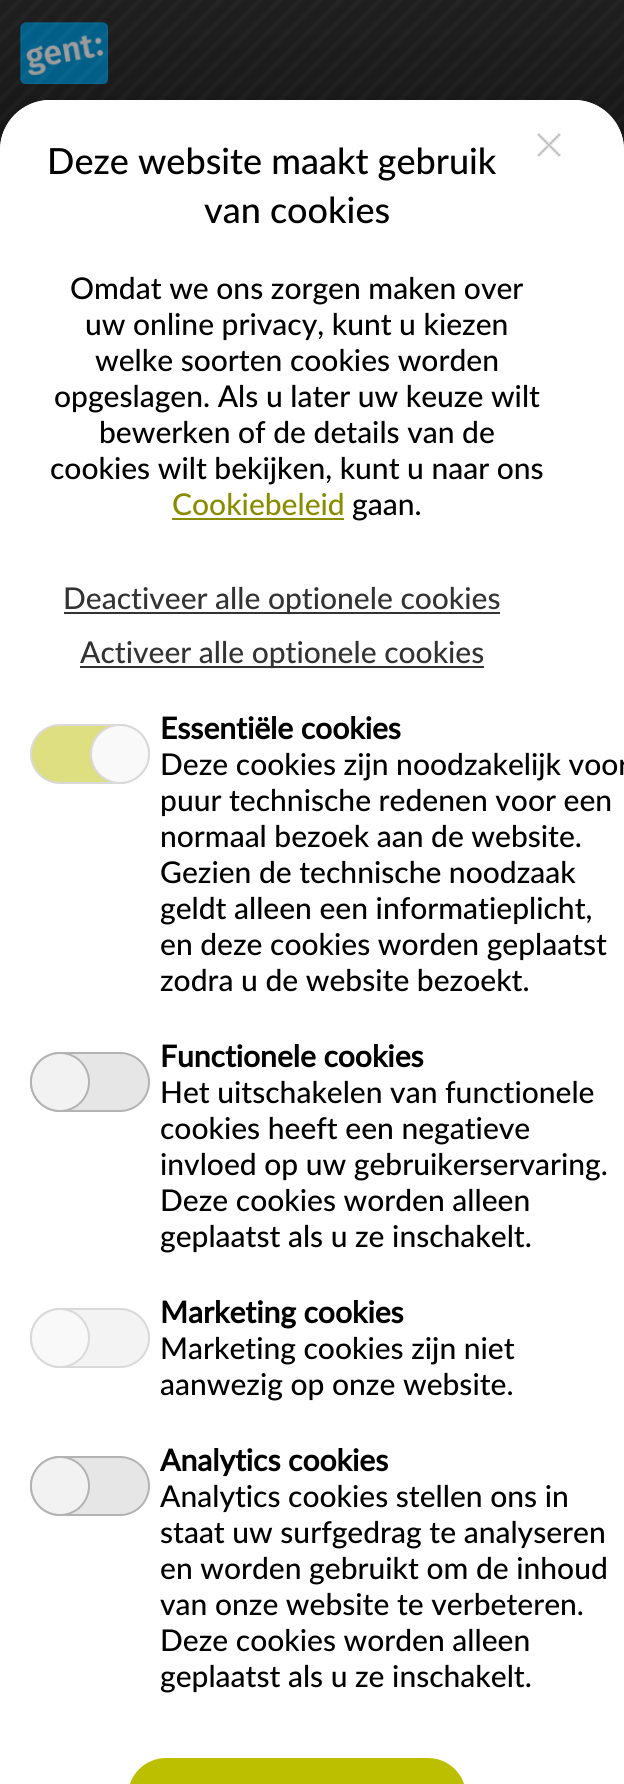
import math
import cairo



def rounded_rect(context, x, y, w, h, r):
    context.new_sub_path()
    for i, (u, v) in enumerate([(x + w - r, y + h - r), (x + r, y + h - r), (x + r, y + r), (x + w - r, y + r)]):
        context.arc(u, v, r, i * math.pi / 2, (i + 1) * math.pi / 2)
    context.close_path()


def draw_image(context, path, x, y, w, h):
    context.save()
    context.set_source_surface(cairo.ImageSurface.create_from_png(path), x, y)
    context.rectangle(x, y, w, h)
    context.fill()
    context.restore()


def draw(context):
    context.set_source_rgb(0, 0, 0)
    context.paint()
    draw_image(context, "images/1.png", 0, 0, 624, 150)
    draw_image(context, "images/2.png", 20, 22, 88, 62)
    draw_image(context, "images/3.png", 0, 0, 624, 150)
    context.set_source_rgb(1, 1, 1)
    context.new_path()
    context.move_to(50, 100)
    context.line_to(574, 100)
    context.curve_to(601.5, 100, 624, 122.5, 624, 150)
    context.line_to(624, 1784)
    context.line_to(0, 1784)
    context.line_to(0, 150)
    context.curve_to(0, 122.5, 22.5, 100, 50, 100)
    context.close_path()
    context.fill()
    rounded_rect(context, 10, 110, 604, 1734, 40)
    context.set_line_width(20)
    context.stroke()
    draw_image(context, "images/4.png", 537, 133, 24, 24)
    context.set_source_rgb(138 / 255, 140 / 255, 0)
    context.rectangle(172, 518, 172, 2)
    context.fill()
    context.set_source_rgb(51 / 255, 51 / 255, 51 / 255)
    context.rectangle(64, 612, 436, 2)
    context.fill()
    context.rectangle(80, 666, 404, 2)
    context.fill()
    context.set_source_rgb(222 / 255, 223 / 255, 128 / 255)
    rounded_rect(context, 31, 725, 118, 58, 29)
    context.fill_preserve()
    context.set_source_rgb(217 / 255, 217 / 255, 217 / 255)
    context.set_line_width(2)
    context.stroke()
    context.set_source_rgb(249 / 255, 249 / 255, 249 / 255)
    context.arc(120, 754, 29, 0, 2 * math.pi)
    context.fill_preserve()
    context.set_source_rgb(217 / 255, 217 / 255, 217 / 255)
    context.stroke()
    context.set_source_rgb(230 / 255, 230 / 255, 230 / 255)
    rounded_rect(context, 31, 1053, 118, 58, 29)
    context.fill_preserve()
    context.set_source_rgb(179 / 255, 179 / 255, 179 / 255)
    context.stroke()
    context.set_source_rgb(242 / 255, 242 / 255, 242 / 255)
    context.arc(60, 1082, 29, 0, 2 * math.pi)
    context.fill_preserve()
    context.set_source_rgb(179 / 255, 179 / 255, 179 / 255)
    context.stroke()
    context.set_source_rgb(243 / 255, 243 / 255, 243 / 255)
    rounded_rect(context, 31, 1309, 118, 58, 29)
    context.fill_preserve()
    context.set_source_rgb(217 / 255, 217 / 255, 217 / 255)
    context.stroke()
    context.set_source_rgb(249 / 255, 249 / 255, 249 / 255)
    context.arc(60, 1338, 29, 0, 2 * math.pi)
    context.fill_preserve()
    context.set_source_rgb(217 / 255, 217 / 255, 217 / 255)
    context.stroke()
    context.set_source_rgb(230 / 255, 230 / 255, 230 / 255)
    rounded_rect(context, 31, 1457, 118, 58, 29)
    context.fill_preserve()
    context.set_source_rgb(179 / 255, 179 / 255, 179 / 255)
    context.stroke()
    context.set_source_rgb(242 / 255, 242 / 255, 242 / 255)
    context.arc(60, 1486, 29, 0, 2 * math.pi)
    context.fill_preserve()
    context.set_source_rgb(179 / 255, 179 / 255, 179 / 255)
    context.stroke()
    context.set_source_rgb(188 / 255, 191 / 255, 0)
    context.new_path()
    context.move_to(166, 1758)
    context.line_to(428, 1758)
    context.curve_to(449, 1758, 466, 1775, 466, 1796)
    context.line_to(466, 1784)
    context.line_to(128, 1784)
    context.line_to(128, 1796)
    context.curve_to(128, 1775, 145, 1758, 166, 1758)
    context.close_path()
    context.fill()
    context.select_font_face("Lato Medium")
    context.set_font_size(36)
    context.set_source_rgb(0, 0, 0)
    context.move_to(47, 174)
    context.show_text("Deze website maakt gebruik")
    context.move_to(204, 223)
    context.show_text("van cookies")
    context.set_font_size(30)
    context.move_to(70, 299)
    context.show_text("Omdat we ons zorgen maken over")
    context.move_to(85, 335)
    context.show_text("uw online privacy, kunt u kiezen")
    context.move_to(95, 371)
    context.show_text("welke soorten cookies worden")
    context.move_to(54, 407)
    context.show_text("opgeslagen. Als u later uw keuze wilt")
    context.move_to(99, 443)
    context.show_text("bewerken of de details van de")
    context.move_to(50, 479)
    context.show_text("cookies wilt bekijken, kunt u naar ons")
    context.set_source_rgb(138 / 255, 140 / 255, 0)
    context.move_to(172, 515)
    context.show_text("Cookiebeleid")
    context.set_source_rgb(0, 0, 0)
    context.move_to(352, 515)
    context.show_text("gaan.")
    context.set_source_rgb(51 / 255, 51 / 255, 51 / 255)
    context.move_to(63, 609)
    context.show_text("Deactiveer alle optionele cookies")
    context.move_to(80, 663)
    context.show_text("Activeer alle optionele cookies")
    context.select_font_face("Lato", cairo.FontSlant.NORMAL, cairo.FontWeight.BOLD)
    context.set_source_rgb(0, 0, 0)
    context.move_to(160, 739)
    context.show_text("Essentiële cookies")
    context.select_font_face("Lato Medium")
    context.move_to(160, 775)
    context.show_text("Deze cookies zijn noodzakelijk voor")
    context.move_to(160, 811)
    context.show_text("puur technische redenen voor een")
    context.move_to(160, 847)
    context.show_text("normaal bezoek aan de website.")
    context.move_to(160, 883)
    context.show_text("Gezien de technische noodzaak")
    context.move_to(160, 919)
    context.show_text("geldt alleen een informatieplicht,")
    context.move_to(160, 955)
    context.show_text("en deze cookies worden geplaatst")
    context.move_to(160, 991)
    context.show_text("zodra u de website bezoekt.")
    context.select_font_face("Lato", cairo.FontSlant.NORMAL, cairo.FontWeight.BOLD)
    context.move_to(160, 1067)
    context.show_text("Functionele cookies")
    context.select_font_face("Lato Medium")
    context.move_to(160, 1103)
    context.show_text("Het uitschakelen van functionele")
    context.move_to(160, 1139)
    context.show_text("cookies heeft een negatieve")
    context.move_to(160, 1175)
    context.show_text("invloed op uw gebruikerservaring.")
    context.move_to(160, 1211)
    context.show_text("Deze cookies worden alleen")
    context.move_to(160, 1247)
    context.show_text("geplaatst als u ze inschakelt.")
    context.select_font_face("Lato", cairo.FontSlant.NORMAL, cairo.FontWeight.BOLD)
    context.move_to(160, 1323)
    context.show_text("Marketing cookies")
    context.select_font_face("Lato Medium")
    context.move_to(160, 1359)
    context.show_text("Marketing cookies zijn niet")
    context.move_to(160, 1395)
    context.show_text("aanwezig op onze website.")
    context.select_font_face("Lato", cairo.FontSlant.NORMAL, cairo.FontWeight.BOLD)
    context.move_to(160, 1471)
    context.show_text("Analytics cookies")
    context.select_font_face("Lato Medium")
    context.move_to(160, 1507)
    context.show_text("Analytics cookies stellen ons in")
    context.move_to(160, 1543)
    context.show_text("staat uw surfgedrag te analyseren")
    context.move_to(160, 1579)
    context.show_text("en worden gebruikt om de inhoud")
    context.move_to(160, 1615)
    context.show_text("van onze website te verbeteren.")
    context.move_to(160, 1651)
    context.show_text("Deze cookies worden alleen")
    context.move_to(160, 1687)
    context.show_text("geplaatst als u ze inschakelt.")


surface = cairo.ImageSurface(cairo.Format.RGB24, 624, 1784)
context = cairo.Context(surface)
options = cairo.FontOptions()
options.set_hint_metrics(cairo.HintMetrics.OFF)
options.set_hint_style(cairo.HintStyle.NONE)
context.set_font_options(options)
context.set_miter_limit(4)
draw(context)
surface.write_to_png("out.png")
